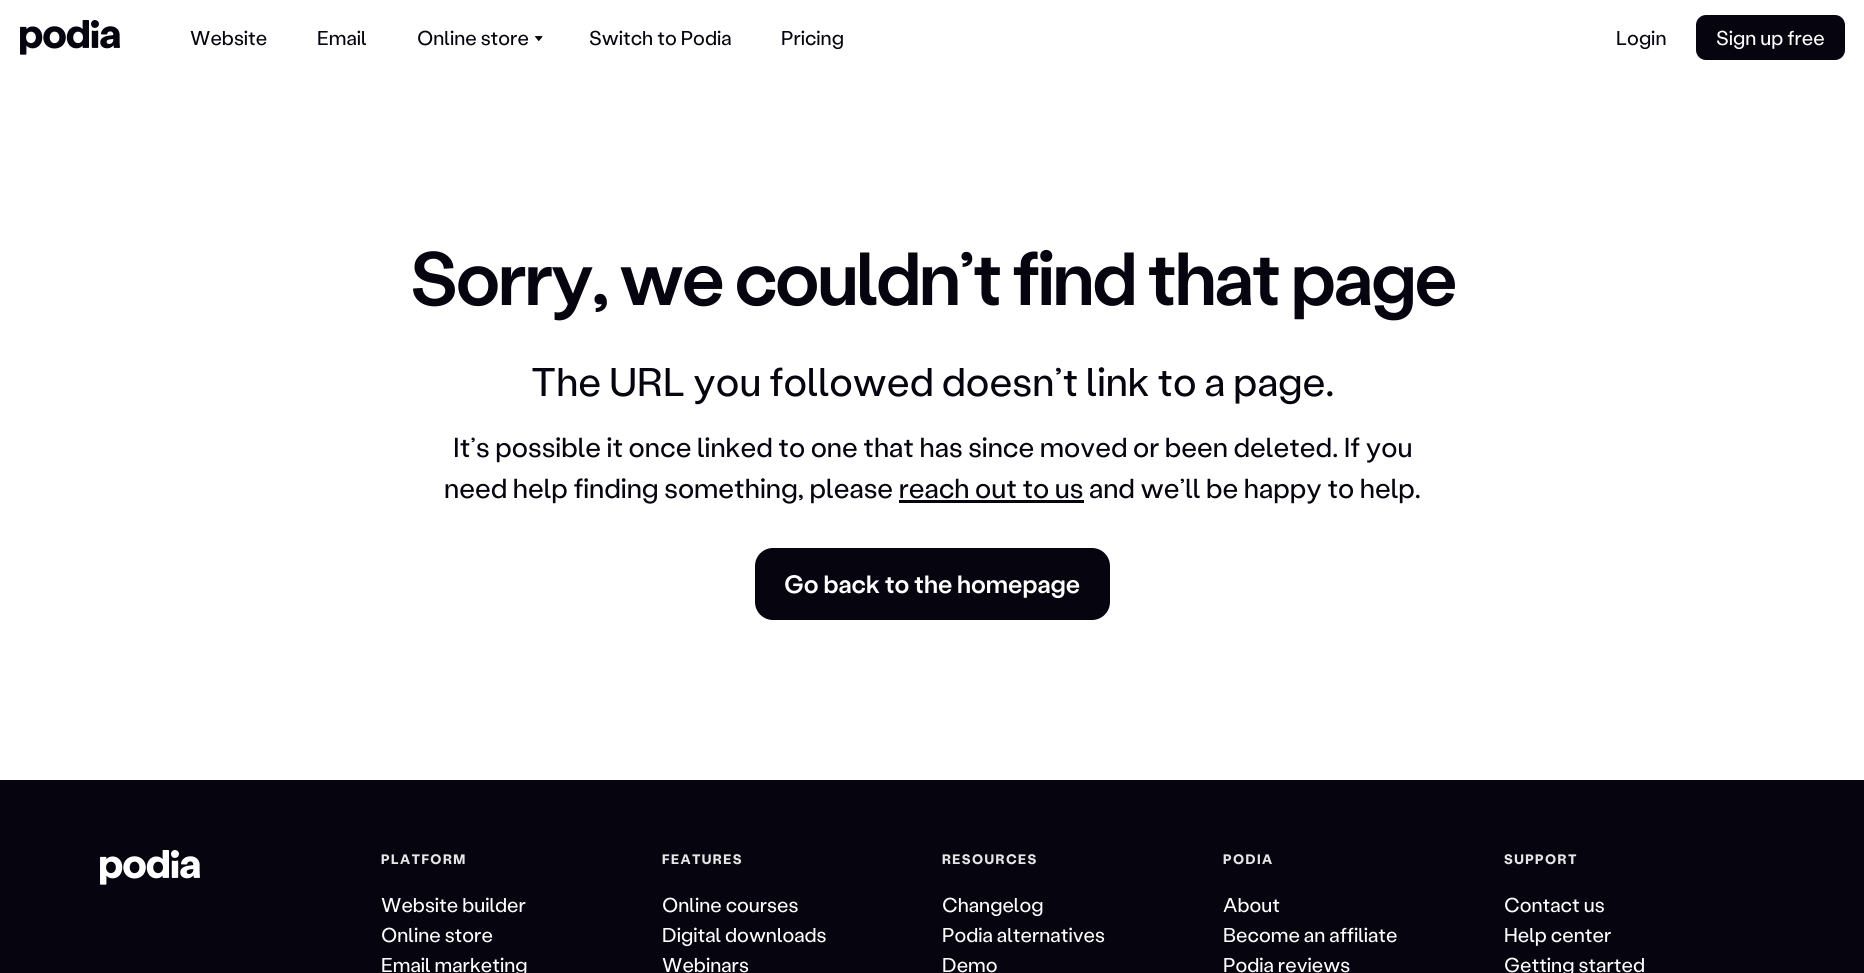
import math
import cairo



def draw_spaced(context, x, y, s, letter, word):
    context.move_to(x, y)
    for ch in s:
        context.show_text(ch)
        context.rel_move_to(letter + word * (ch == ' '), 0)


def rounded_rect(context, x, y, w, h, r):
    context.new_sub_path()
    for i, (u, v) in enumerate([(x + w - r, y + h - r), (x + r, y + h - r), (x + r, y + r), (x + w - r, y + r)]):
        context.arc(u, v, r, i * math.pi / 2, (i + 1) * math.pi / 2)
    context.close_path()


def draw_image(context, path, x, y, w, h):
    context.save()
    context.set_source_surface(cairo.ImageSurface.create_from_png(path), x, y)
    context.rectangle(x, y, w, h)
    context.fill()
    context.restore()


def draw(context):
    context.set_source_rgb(1, 1, 1)
    context.paint()
    draw_image(context, "images/1.png", 20, 20, 100, 35)
    draw_image(context, "images/2.png", 535, 36, 8, 5)
    context.set_source_rgb(6 / 255, 4 / 255, 14 / 255)
    rounded_rect(context, 1696, 15, 149, 45, 10)
    context.fill()
    context.rectangle(899, 500, 185, 3)
    context.fill()
    rounded_rect(context, 755, 548, 355, 72, 18)
    context.fill()
    context.rectangle(0, 780, 1864, 193)
    context.fill()
    draw_image(context, "images/3.png", 100, 850, 100, 35)
    context.select_font_face("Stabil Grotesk")
    context.set_font_size(20)
    context.move_to(190, 45)
    context.show_text("Website")
    context.move_to(317, 45)
    context.show_text("Email")
    context.move_to(417, 45)
    context.show_text("Online store")
    context.move_to(589, 45)
    context.show_text("Switch to Podia")
    context.move_to(781, 45)
    context.show_text("Pricing")
    context.move_to(1616, 45)
    context.show_text("Login")
    context.set_source_rgb(1, 1, 1)
    context.move_to(1716, 45)
    context.show_text("Sign up free")
    context.select_font_face("Stabil Grotesk Medium")
    context.set_font_size(75)
    context.set_source_rgb(6 / 255, 4 / 255, 14 / 255)
    draw_spaced(context, 410, 305, "Sorry, we couldn’t find that page", -2.25, 0)
    context.select_font_face("Stabil Grotesk")
    context.set_font_size(40)
    context.move_to(531, 396)
    context.show_text("The URL you followed doesn’t link to a page.")
    context.set_font_size(27.5)
    context.move_to(453, 457)
    context.show_text("It’s possible it once linked to one that has since moved or been deleted. If you")
    context.move_to(444, 498)
    context.show_text("need help finding something, please reach out to us and we’ll be happy to help.")
    context.select_font_face("Stabil Grotesk Medium")
    context.set_font_size(25)
    context.set_source_rgb(1, 1, 1)
    context.move_to(784, 593)
    context.show_text("Go back to the homepage")
    context.select_font_face("Stabil Grotesk", cairo.FontSlant.NORMAL, cairo.FontWeight.BOLD)
    context.set_font_size(13.75)
    context.set_source_rgb(230 / 255, 230 / 255, 231 / 255)
    draw_spaced(context, 381, 864, "PLATFORM", 1.4, 0)
    context.select_font_face("Stabil Grotesk")
    context.set_font_size(20)
    context.set_source_rgb(1, 1, 1)
    context.move_to(381, 912)
    context.show_text("Website builder")
    context.move_to(381, 942)
    context.show_text("Online store")
    context.move_to(381, 972)
    context.show_text("Email marketing")
    context.select_font_face("Stabil Grotesk", cairo.FontSlant.NORMAL, cairo.FontWeight.BOLD)
    context.set_font_size(13.75)
    context.set_source_rgb(230 / 255, 230 / 255, 231 / 255)
    draw_spaced(context, 662, 864, "FEATURES", 1.4, 0)
    context.select_font_face("Stabil Grotesk")
    context.set_font_size(20)
    context.set_source_rgb(1, 1, 1)
    context.move_to(662, 912)
    context.show_text("Online courses")
    context.move_to(662, 942)
    context.show_text("Digital downloads")
    context.move_to(662, 972)
    context.show_text("Webinars")
    context.select_font_face("Stabil Grotesk", cairo.FontSlant.NORMAL, cairo.FontWeight.BOLD)
    context.set_font_size(13.75)
    context.set_source_rgb(230 / 255, 230 / 255, 231 / 255)
    draw_spaced(context, 942, 864, "RESOURCES", 1.4, 0)
    context.select_font_face("Stabil Grotesk")
    context.set_font_size(20)
    context.set_source_rgb(1, 1, 1)
    context.move_to(942, 912)
    context.show_text("Changelog")
    context.move_to(942, 942)
    context.show_text("Podia alternatives")
    context.move_to(942, 972)
    context.show_text("Demo")
    context.select_font_face("Stabil Grotesk", cairo.FontSlant.NORMAL, cairo.FontWeight.BOLD)
    context.set_font_size(13.75)
    context.set_source_rgb(230 / 255, 230 / 255, 231 / 255)
    draw_spaced(context, 1223, 864, "PODIA", 1.4, 0)
    context.select_font_face("Stabil Grotesk")
    context.set_font_size(20)
    context.set_source_rgb(1, 1, 1)
    context.move_to(1223, 912)
    context.show_text("About")
    context.move_to(1223, 942)
    context.show_text("Become an affiliate")
    context.move_to(1223, 972)
    context.show_text("Podia reviews")
    context.select_font_face("Stabil Grotesk", cairo.FontSlant.NORMAL, cairo.FontWeight.BOLD)
    context.set_font_size(13.75)
    context.set_source_rgb(230 / 255, 230 / 255, 231 / 255)
    draw_spaced(context, 1504, 864, "SUPPORT", 1.4, 0)
    context.select_font_face("Stabil Grotesk")
    context.set_font_size(20)
    context.set_source_rgb(1, 1, 1)
    context.move_to(1504, 912)
    context.show_text("Contact us")
    context.move_to(1504, 942)
    context.show_text("Help center")
    context.move_to(1504, 972)
    context.show_text("Getting started")


surface = cairo.ImageSurface(cairo.Format.RGB24, 1864, 973)
context = cairo.Context(surface)
options = cairo.FontOptions()
options.set_hint_metrics(cairo.HintMetrics.OFF)
options.set_hint_style(cairo.HintStyle.NONE)
context.set_font_options(options)
context.set_miter_limit(4)
draw(context)
surface.write_to_png("out.png")
